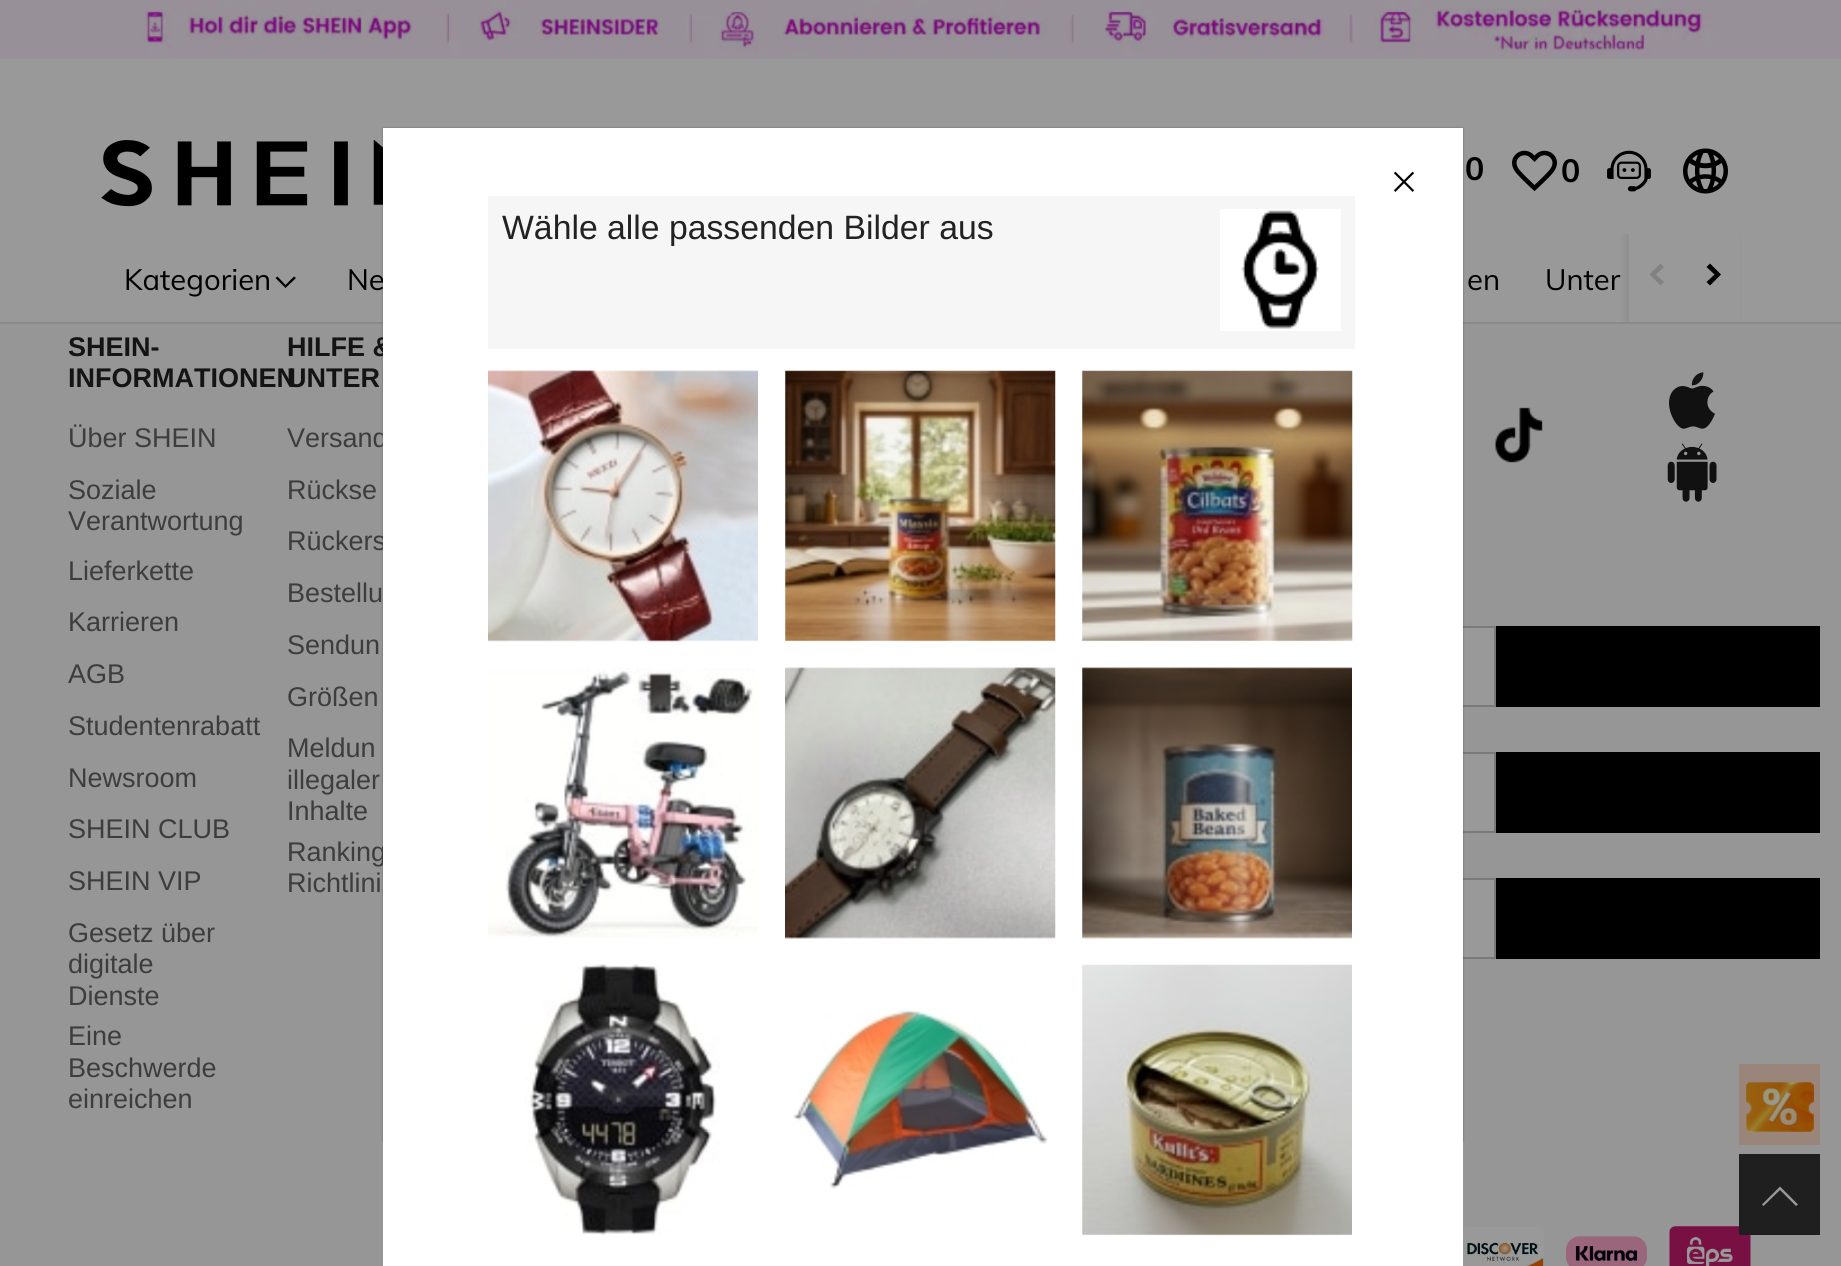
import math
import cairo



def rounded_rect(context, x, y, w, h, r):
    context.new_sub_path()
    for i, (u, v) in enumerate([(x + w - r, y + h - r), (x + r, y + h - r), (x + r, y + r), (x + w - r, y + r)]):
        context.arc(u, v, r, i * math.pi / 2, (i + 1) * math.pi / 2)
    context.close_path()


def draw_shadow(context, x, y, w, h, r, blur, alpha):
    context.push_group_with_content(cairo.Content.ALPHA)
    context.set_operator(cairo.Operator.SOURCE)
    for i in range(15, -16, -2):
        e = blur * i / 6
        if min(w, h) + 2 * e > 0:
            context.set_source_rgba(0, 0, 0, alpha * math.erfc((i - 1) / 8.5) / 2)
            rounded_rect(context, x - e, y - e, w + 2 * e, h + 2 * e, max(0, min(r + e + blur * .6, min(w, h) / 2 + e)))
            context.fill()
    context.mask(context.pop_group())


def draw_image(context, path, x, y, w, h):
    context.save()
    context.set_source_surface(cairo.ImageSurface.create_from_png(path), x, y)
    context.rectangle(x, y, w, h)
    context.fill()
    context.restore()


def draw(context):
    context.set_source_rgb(153 / 255, 153 / 255, 153 / 255)
    context.paint()
    draw_image(context, "images/1.png", 0, 0, 1841, 59)
    draw_image(context, "images/2.png", 101, 140, 282, 67)
    draw_image(context, "images/3.png", 1512, 150, 45, 41)
    draw_image(context, "images/4.png", 1607, 150, 44, 42)
    draw_image(context, "images/5.png", 1683, 148, 45, 46)
    context.set_source_rgb(137 / 255, 137 / 255, 137 / 255)
    context.rectangle(0, 322, 1841, 2)
    context.fill()
    context.set_source_rgb(0, 0, 0)
    context.new_path()
    context.move_to(294, 276.5)
    context.line_to(296, 278)
    context.line_to(285.5, 288)
    context.line_to(275.5, 278)
    context.line_to(277.5, 276.5)
    context.line_to(285.5, 285)
    context.close_path()
    context.fill()
    context.set_source_rgb(150 / 255, 150 / 255, 150 / 255)
    context.rectangle(0, 324, 1841, 942)
    context.fill()
    context.save()
    context.rectangle(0, 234, 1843, 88)
    context.clip()
    context.set_source_rgb(0, 0, 0)
    draw_shadow(context, 1625, 234, 112, 88, 0, 3.5, 0.08)
    context.restore()
    context.set_source_rgb(153 / 255, 153 / 255, 153 / 255)
    context.rectangle(1629, 234, 111, 88)
    context.fill()
    context.set_source_rgb(130 / 255, 130 / 255, 130 / 255)
    context.set_fill_rule(cairo.FillRule.EVEN_ODD)
    context.new_path()
    context.move_to(1660.5, 263.5)
    context.line_to(1664, 267)
    context.line_to(1656, 274.5)
    context.line_to(1664, 282)
    context.line_to(1660.5, 285.5)
    context.line_to(1649.5, 274.5)
    context.close_path()
    context.fill()
    context.set_source_rgb(0, 0, 0)
    context.new_path()
    context.move_to(1706.5, 267)
    context.line_to(1710, 263.5)
    context.line_to(1721, 274.5)
    context.line_to(1710, 285.5)
    context.line_to(1706.5, 282)
    context.line_to(1714.5, 274.5)
    context.close_path()
    context.fill()
    draw_image(context, "images/6.png", 1495, 407, 48, 56)
    draw_image(context, "images/7.png", 1669, 372, 46, 57)
    draw_image(context, "images/8.png", 1667, 443, 50, 59)
    context.set_source_rgb(153 / 255, 153 / 255, 153 / 255)
    context.rectangle(1463, 628, 31, 77)
    context.fill()
    context.rectangle(946, 627, 549, 79)
    context.set_source_rgb(122 / 255, 122 / 255, 122 / 255)
    context.stroke()
    context.set_source_rgb(0, 0, 0)
    context.rectangle(1496, 626, 324, 81)
    context.fill()
    context.set_source_rgb(153 / 255, 153 / 255, 153 / 255)
    context.rectangle(1463, 754, 31, 77)
    context.fill()
    context.rectangle(1126, 753, 369, 79)
    context.set_source_rgb(122 / 255, 122 / 255, 122 / 255)
    context.stroke()
    context.set_source_rgb(0, 0, 0)
    context.rectangle(1496, 752, 324, 81)
    context.fill()
    context.set_source_rgb(153 / 255, 153 / 255, 153 / 255)
    context.rectangle(1463, 880, 31, 77)
    context.fill()
    context.rectangle(1126, 879, 369, 79)
    context.set_source_rgb(122 / 255, 122 / 255, 122 / 255)
    context.stroke()
    context.set_source_rgb(0, 0, 0)
    context.rectangle(1496, 878, 324, 81)
    context.fill()
    draw_image(context, "images/9.png", 1463, 1227, 81, 39)
    draw_image(context, "images/10.png", 1566, 1236, 81, 30)
    draw_image(context, "images/11.png", 1669, 1226, 82, 40)
    context.set_source_rgb(153 / 255, 133 / 255, 121 / 255)
    context.rectangle(1739, 1064, 81, 81)
    context.fill()
    draw_image(context, "images/12.png", 1746, 1081, 68, 51)
    context.set_source_rgb(31 / 255, 31 / 255, 31 / 255)
    context.rectangle(1739, 1154, 81, 81)
    context.fill()
    context.set_source_rgb(153 / 255, 153 / 255, 153 / 255)
    context.set_fill_rule(cairo.FillRule.WINDING)
    context.new_path()
    context.move_to(1798, 1204.5)
    context.line_to(1780, 1186.5)
    context.line_to(1762, 1204.5)
    context.line_to(1763.5, 1206)
    context.line_to(1780, 1190)
    context.line_to(1796, 1206)
    context.close_path()
    context.fill()
    context.set_source_rgb(0, 0, 0)
    draw_shadow(context, 383, 128, 1080, 1013, 0, 1, 0.3)
    context.select_font_face("Muli", cairo.FontSlant.NORMAL, cairo.FontWeight.BOLD)
    context.set_font_size(32)
    context.set_source_rgb(0, 0, 0)
    context.move_to(1465, 180)
    context.show_text("0")
    context.move_to(1561, 182)
    context.show_text("0")
    context.select_font_face("Muli")
    context.set_font_size(29.25)
    context.move_to(124, 290)
    context.show_text("Kategorien")
    context.move_to(347, 290)
    context.show_text("Ne")
    context.move_to(1467, 290)
    context.show_text("en")
    context.move_to(1545, 290)
    context.show_text("Unter")
    context.select_font_face("Liberation Sans", cairo.FontSlant.NORMAL, cairo.FontWeight.BOLD)
    context.set_font_size(27)
    context.set_source_rgb(20 / 255, 20 / 255, 20 / 255)
    context.move_to(68, 356)
    context.show_text("SHEIN-")
    context.move_to(68, 387)
    context.show_text("INFORMATIONEN")
    context.select_font_face("Liberation Sans")
    context.set_source_rgb(61 / 255, 61 / 255, 61 / 255)
    context.move_to(68, 447)
    context.show_text("Über SHEIN")
    context.move_to(68, 499)
    context.show_text("Soziale")
    context.move_to(68, 530)
    context.show_text("Verantwortung")
    context.move_to(68, 580)
    context.show_text("Lieferkette")
    context.move_to(68, 631)
    context.show_text("Karrieren")
    context.move_to(68, 683)
    context.show_text("AGB")
    context.move_to(68, 735)
    context.show_text("Studentenrabatt")
    context.move_to(68, 787)
    context.show_text("Newsroom")
    context.move_to(68, 838)
    context.show_text("SHEIN CLUB")
    context.move_to(68, 890)
    context.show_text("SHEIN VIP")
    context.move_to(68, 942)
    context.show_text("Gesetz über")
    context.move_to(68, 973)
    context.show_text("digitale")
    context.move_to(68, 1005)
    context.show_text("Dienste")
    context.move_to(68, 1045)
    context.show_text("Eine")
    context.move_to(68, 1077)
    context.show_text("Beschwerde")
    context.move_to(68, 1108)
    context.show_text("einreichen")
    context.select_font_face("Liberation Sans", cairo.FontSlant.NORMAL, cairo.FontWeight.BOLD)
    context.set_source_rgb(20 / 255, 20 / 255, 20 / 255)
    context.move_to(287, 356)
    context.show_text("HILFE &")
    context.move_to(287, 387)
    context.show_text("UNTER")
    context.select_font_face("Liberation Sans")
    context.set_source_rgb(61 / 255, 61 / 255, 61 / 255)
    context.move_to(287, 447)
    context.show_text("Versand")
    context.move_to(287, 499)
    context.show_text("Rückse")
    context.move_to(287, 550)
    context.show_text("Rückers")
    context.move_to(287, 602)
    context.show_text("Bestellu")
    context.move_to(287, 654)
    context.show_text("Sendun")
    context.move_to(287, 706)
    context.show_text("Größen")
    context.move_to(287, 757)
    context.show_text("Meldun")
    context.move_to(287, 789)
    context.show_text("illegaler")
    context.move_to(287, 820)
    context.show_text("Inhalte")
    context.move_to(287, 861)
    context.show_text("Ranking")
    context.move_to(287, 892)
    context.show_text("Richtlini")
    context.set_source_rgb(1, 1, 1)
    context.rectangle(383, 128, 1080, 1138)
    context.fill()
    draw_image(context, "images/13.png", 1393, 171, 22, 21)
    context.set_source_rgb(246 / 255, 246 / 255, 246 / 255)
    context.rectangle(488, 196, 867, 153)
    context.fill()
    context.set_font_size(33.75)
    context.set_source_rgb(34 / 255, 34 / 255, 34 / 255)
    context.move_to(502, 239)
    context.show_text("Wähle alle passenden Bilder aus")
    context.set_source_rgb(1, 1, 1)
    context.rectangle(1220, 209, 121, 122)
    context.fill()
    draw_image(context, "images/14.png", 1241, 210, 78, 119)
    draw_image(context, "images/15.png", 488, 370, 270, 272)
    draw_image(context, "images/16.png", 785, 370, 271, 272)
    draw_image(context, "images/17.png", 1082, 370, 271, 272)
    draw_image(context, "images/18.png", 488, 668, 270, 270)
    draw_image(context, "images/19.png", 785, 667, 271, 272)
    draw_image(context, "images/20.png", 1082, 667, 270, 272)
    draw_image(context, "images/21.png", 524, 964, 196, 272)
    draw_image(context, "images/22.png", 793, 1009, 255, 180)
    draw_image(context, "images/23.png", 1082, 964, 270, 272)


surface = cairo.ImageSurface(cairo.Format.RGB24, 1841, 1266)
context = cairo.Context(surface)
options = cairo.FontOptions()
options.set_hint_metrics(cairo.HintMetrics.OFF)
options.set_hint_style(cairo.HintStyle.NONE)
context.set_font_options(options)
context.set_miter_limit(4)
draw(context)
surface.write_to_png("out.png")
